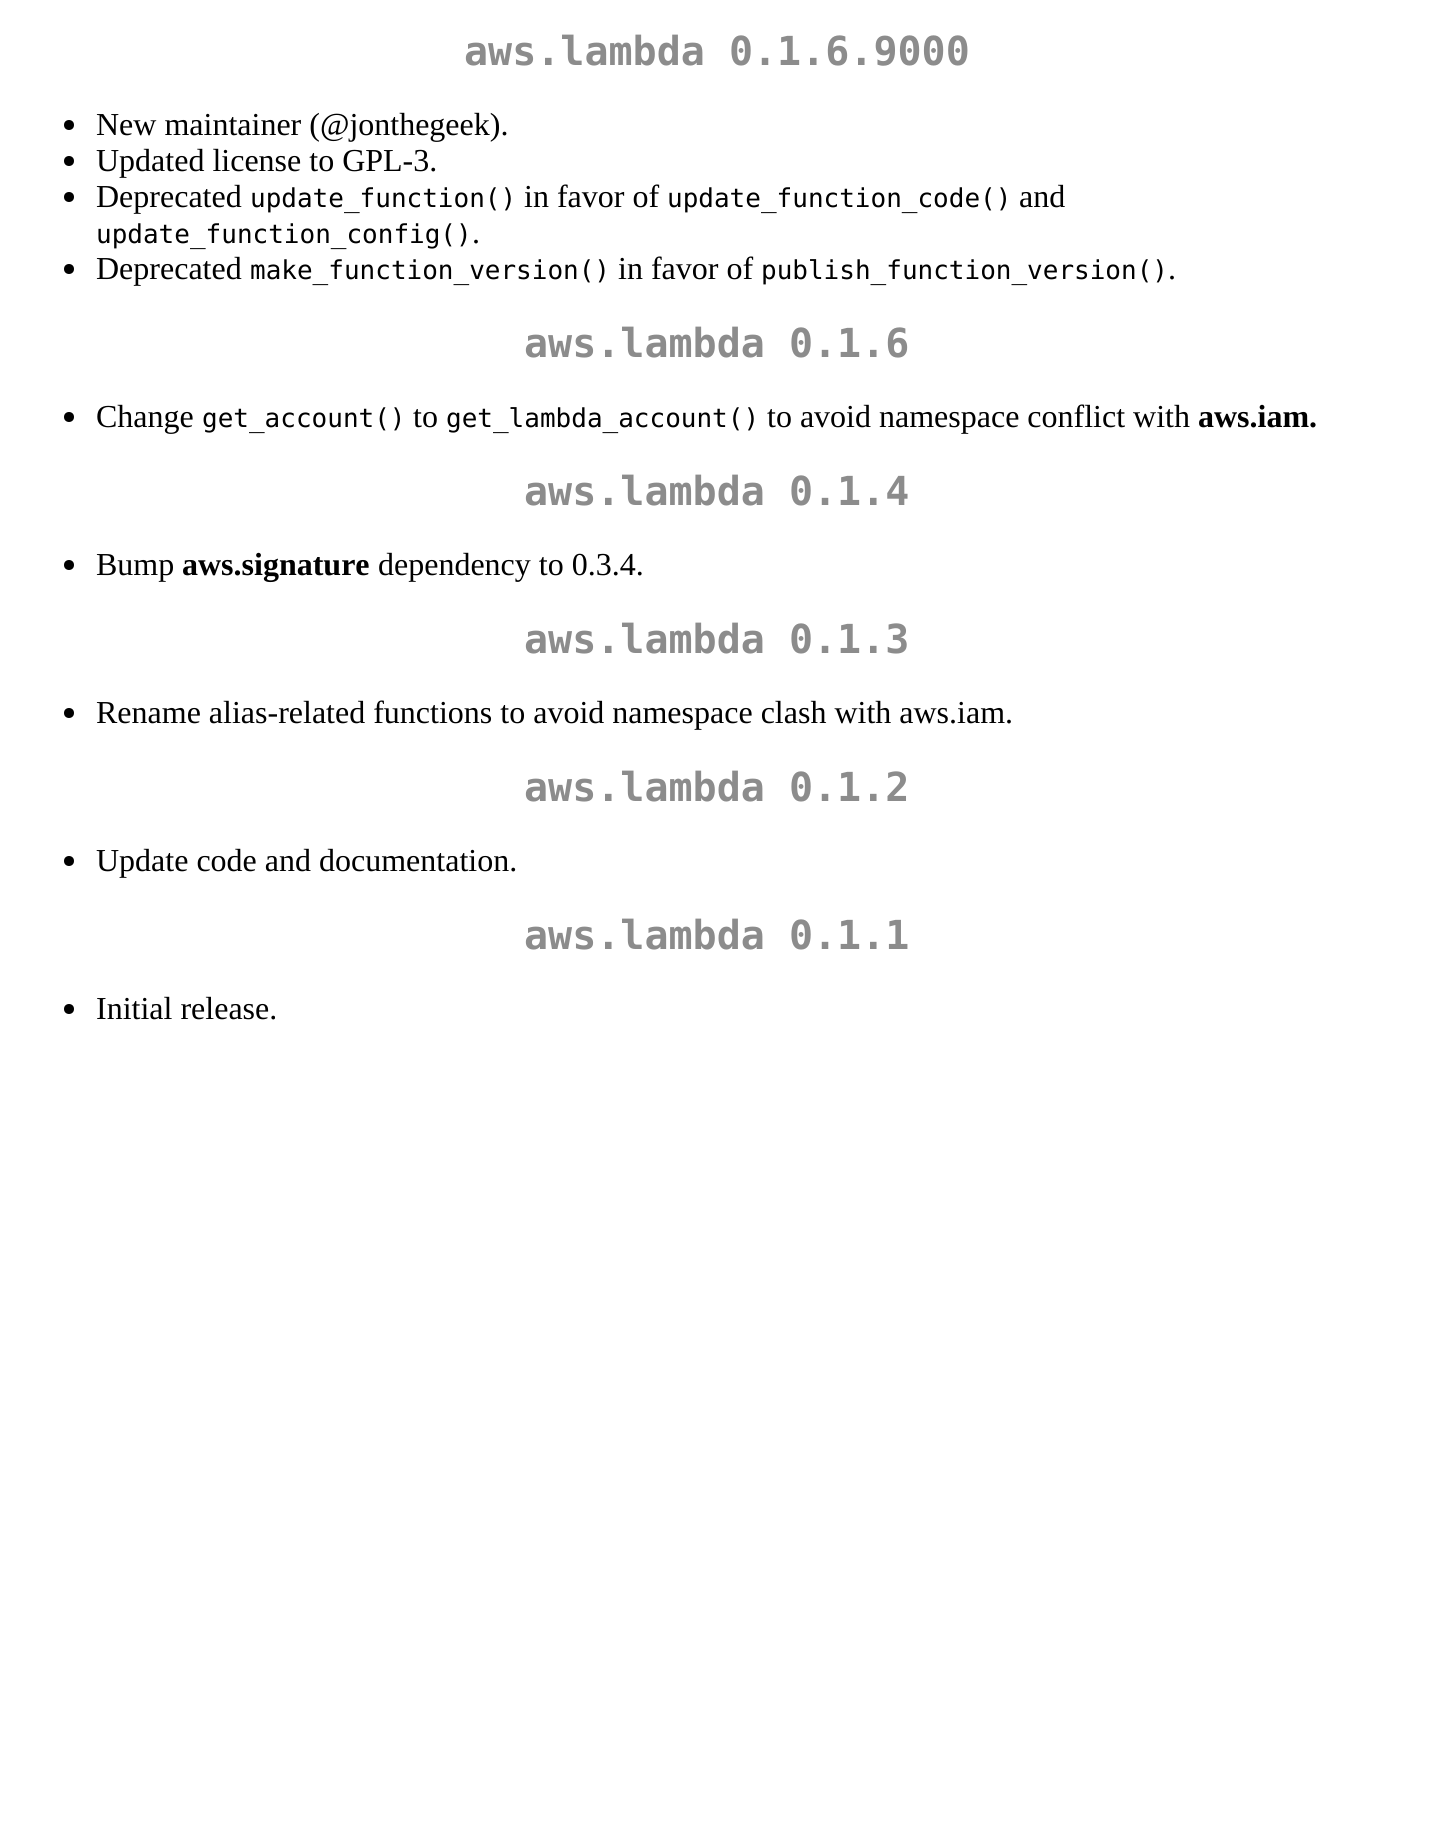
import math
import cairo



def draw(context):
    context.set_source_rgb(1, 1, 1)
    context.paint()
    context.set_source_rgb(0, 0, 0)
    context.arc(69, 125, 5, 0, 2 * math.pi)
    context.fill()
    context.arc(69, 161, 5, 0, 2 * math.pi)
    context.fill()
    context.arc(69, 197, 5, 0, 2 * math.pi)
    context.fill()
    context.arc(69, 269, 5, 0, 2 * math.pi)
    context.fill()
    context.arc(69, 417, 5, 0, 2 * math.pi)
    context.fill()
    context.arc(69, 565, 5, 0, 2 * math.pi)
    context.fill()
    context.arc(69, 713, 5, 0, 2 * math.pi)
    context.fill()
    context.arc(69, 861, 5, 0, 2 * math.pi)
    context.fill()
    context.arc(69, 1009, 5, 0, 2 * math.pi)
    context.fill()
    context.select_font_face("DejaVu Sans Mono", cairo.FontSlant.NORMAL, cairo.FontWeight.BOLD)
    context.set_font_size(40)
    context.set_source_rgb(140 / 255, 140 / 255, 140 / 255)
    context.move_to(464, 65)
    context.show_text("aws.lambda 0.1.6.9000")
    context.select_font_face("Liberation Serif")
    context.set_font_size(32)
    context.set_source_rgb(0, 0, 0)
    context.move_to(96, 135)
    context.show_text("New maintainer (@jonthegeek).")
    context.move_to(96, 171)
    context.show_text("Updated license to GPL-3.")
    context.move_to(96, 207)
    context.show_text("Deprecated")
    context.select_font_face("DejaVu Sans Mono")
    context.set_font_size(26)
    context.move_to(250, 207)
    context.show_text("update_function()")
    context.select_font_face("Liberation Serif")
    context.set_font_size(32)
    context.move_to(524, 207)
    context.show_text("in favor of")
    context.select_font_face("DejaVu Sans Mono")
    context.set_font_size(26)
    context.move_to(667, 207)
    context.show_text("update_function_code()")
    context.select_font_face("Liberation Serif")
    context.set_font_size(32)
    context.move_to(1019, 207)
    context.show_text("and")
    context.select_font_face("DejaVu Sans Mono")
    context.set_font_size(26)
    context.move_to(96, 243)
    context.show_text("update_function_config()")
    context.select_font_face("Liberation Serif")
    context.set_font_size(32)
    context.move_to(472, 243)
    context.show_text(".")
    context.move_to(96, 279)
    context.show_text("Deprecated")
    context.select_font_face("DejaVu Sans Mono")
    context.set_font_size(26)
    context.move_to(250, 279)
    context.show_text("make_function_version()")
    context.select_font_face("Liberation Serif")
    context.set_font_size(32)
    context.move_to(618, 279)
    context.show_text("in favor of")
    context.select_font_face("DejaVu Sans Mono")
    context.set_font_size(26)
    context.move_to(761, 279)
    context.show_text("publish_function_version()")
    context.select_font_face("Liberation Serif")
    context.set_font_size(32)
    context.move_to(1168, 279)
    context.show_text(".")
    context.select_font_face("DejaVu Sans Mono", cairo.FontSlant.NORMAL, cairo.FontWeight.BOLD)
    context.set_font_size(40)
    context.set_source_rgb(140 / 255, 140 / 255, 140 / 255)
    context.move_to(524, 357)
    context.show_text("aws.lambda 0.1.6")
    context.select_font_face("Liberation Serif")
    context.set_font_size(32)
    context.set_source_rgb(0, 0, 0)
    context.move_to(96, 427)
    context.show_text("Change")
    context.select_font_face("DejaVu Sans Mono")
    context.set_font_size(26)
    context.move_to(202, 427)
    context.show_text("get_account()")
    context.select_font_face("Liberation Serif")
    context.set_font_size(32)
    context.move_to(413, 427)
    context.show_text("to")
    context.select_font_face("DejaVu Sans Mono")
    context.set_font_size(26)
    context.move_to(446, 427)
    context.show_text("get_lambda_account()")
    context.select_font_face("Liberation Serif")
    context.set_font_size(32)
    context.move_to(767, 427)
    context.show_text("to avoid namespace conflict with")
    context.select_font_face("Liberation Serif", cairo.FontSlant.NORMAL, cairo.FontWeight.BOLD)
    context.move_to(1198, 427)
    context.show_text("aws.iam.")
    context.select_font_face("DejaVu Sans Mono", cairo.FontSlant.NORMAL, cairo.FontWeight.BOLD)
    context.set_font_size(40)
    context.set_source_rgb(140 / 255, 140 / 255, 140 / 255)
    context.move_to(524, 505)
    context.show_text("aws.lambda 0.1.4")
    context.select_font_face("Liberation Serif")
    context.set_font_size(32)
    context.set_source_rgb(0, 0, 0)
    context.move_to(96, 575)
    context.show_text("Bump")
    context.select_font_face("Liberation Serif", cairo.FontSlant.NORMAL, cairo.FontWeight.BOLD)
    context.move_to(182, 575)
    context.show_text("aws.signature")
    context.select_font_face("Liberation Serif")
    context.move_to(378, 575)
    context.show_text("dependency to 0.3.4.")
    context.select_font_face("DejaVu Sans Mono", cairo.FontSlant.NORMAL, cairo.FontWeight.BOLD)
    context.set_font_size(40)
    context.set_source_rgb(140 / 255, 140 / 255, 140 / 255)
    context.move_to(524, 653)
    context.show_text("aws.lambda 0.1.3")
    context.select_font_face("Liberation Serif")
    context.set_font_size(32)
    context.set_source_rgb(0, 0, 0)
    context.move_to(96, 723)
    context.show_text("Rename alias-related functions to avoid namespace clash with aws.iam.")
    context.select_font_face("DejaVu Sans Mono", cairo.FontSlant.NORMAL, cairo.FontWeight.BOLD)
    context.set_font_size(40)
    context.set_source_rgb(140 / 255, 140 / 255, 140 / 255)
    context.move_to(524, 801)
    context.show_text("aws.lambda 0.1.2")
    context.select_font_face("Liberation Serif")
    context.set_font_size(32)
    context.set_source_rgb(0, 0, 0)
    context.move_to(96, 871)
    context.show_text("Update code and documentation.")
    context.select_font_face("DejaVu Sans Mono", cairo.FontSlant.NORMAL, cairo.FontWeight.BOLD)
    context.set_font_size(40)
    context.set_source_rgb(140 / 255, 140 / 255, 140 / 255)
    context.move_to(524, 949)
    context.show_text("aws.lambda 0.1.1")
    context.select_font_face("Liberation Serif")
    context.set_font_size(32)
    context.set_source_rgb(0, 0, 0)
    context.move_to(96, 1019)
    context.show_text("Initial release.")


surface = cairo.ImageSurface(cairo.Format.RGB24, 1433, 1826)
context = cairo.Context(surface)
options = cairo.FontOptions()
options.set_hint_metrics(cairo.HintMetrics.OFF)
options.set_hint_style(cairo.HintStyle.NONE)
context.set_font_options(options)
context.set_miter_limit(4)
draw(context)
surface.write_to_png("out.png")
